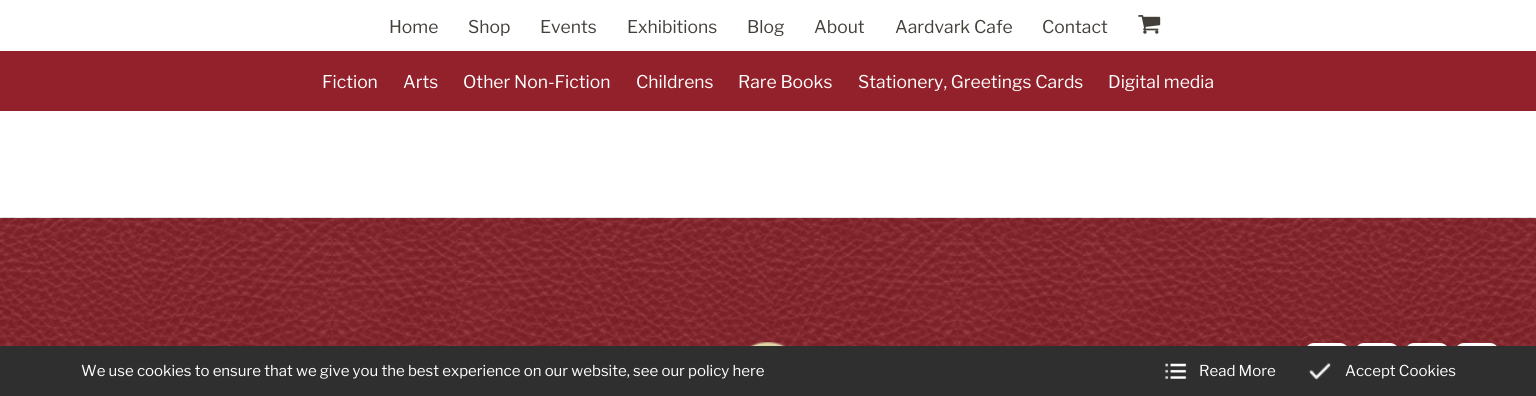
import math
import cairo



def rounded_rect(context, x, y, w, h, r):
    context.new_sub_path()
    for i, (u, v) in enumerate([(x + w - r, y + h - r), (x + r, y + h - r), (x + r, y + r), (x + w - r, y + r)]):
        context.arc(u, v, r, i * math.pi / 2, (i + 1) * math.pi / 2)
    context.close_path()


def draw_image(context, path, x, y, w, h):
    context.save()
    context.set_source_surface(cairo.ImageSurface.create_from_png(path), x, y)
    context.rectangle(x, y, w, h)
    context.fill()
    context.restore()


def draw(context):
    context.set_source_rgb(1, 1, 1)
    context.paint()
    draw_image(context, "images/1.png", 1138, 15, 23, 19)
    context.set_source_rgb(147 / 255, 33 / 255, 43 / 255)
    context.rectangle(0, 51, 1536, 60)
    context.fill()
    context.rectangle(0, 218, 1536, 128)
    context.fill()
    draw_image(context, "images/2.png", 0, 217, 1536, 129)
    draw_image(context, "images/3.png", 749, 342, 37, 4)
    rounded_rect(context, 1306.5, 344.5, 41, 40, 7.5)
    context.set_source_rgb(1, 1, 1)
    context.set_line_width(3)
    context.stroke()
    rounded_rect(context, 1356.5, 344.5, 41, 40, 7.5)
    context.stroke()
    rounded_rect(context, 1406.5, 344.5, 41, 40, 7.5)
    context.stroke()
    rounded_rect(context, 1456.5, 344.5, 41, 40, 7.5)
    context.stroke()
    context.set_source_rgb(47 / 255, 47 / 255, 47 / 255)
    context.rectangle(0, 346, 1536, 50)
    context.fill()
    draw_image(context, "images/4.png", 1165, 363, 22, 16)
    draw_image(context, "images/5.png", 1308, 362, 23, 18)
    context.select_font_face("Libre Franklin")
    context.set_font_size(17.5)
    context.set_source_rgb(67 / 255, 64 / 255, 58 / 255)
    context.move_to(389, 33)
    context.show_text("Home")
    context.move_to(468, 33)
    context.show_text("Shop")
    context.move_to(540, 33)
    context.show_text("Events")
    context.move_to(627, 33)
    context.show_text("Exhibitions")
    context.move_to(747, 33)
    context.show_text("Blog")
    context.move_to(814, 33)
    context.show_text("About")
    context.move_to(895, 33)
    context.show_text("Aardvark Cafe")
    context.move_to(1042, 33)
    context.show_text("Contact")
    context.set_source_rgb(1, 1, 1)
    context.move_to(322, 88)
    context.show_text("Fiction")
    context.move_to(403, 88)
    context.show_text("Arts")
    context.move_to(463, 88)
    context.show_text("Other Non-Fiction")
    context.move_to(636, 88)
    context.show_text("Childrens")
    context.move_to(738, 88)
    context.show_text("Rare Books")
    context.move_to(858, 88)
    context.show_text("Stationery, Greetings Cards")
    context.move_to(1108, 88)
    context.show_text("Digital media")
    context.set_font_size(15)
    context.move_to(81, 376)
    context.show_text("We use cookies to ensure that we give you the best experience on our website, see our policy here")
    context.move_to(1199, 376)
    context.show_text("Read More")
    context.move_to(1345, 376)
    context.show_text("Accept Cookies")


surface = cairo.ImageSurface(cairo.Format.RGB24, 1536, 396)
context = cairo.Context(surface)
options = cairo.FontOptions()
options.set_hint_metrics(cairo.HintMetrics.OFF)
options.set_hint_style(cairo.HintStyle.NONE)
context.set_font_options(options)
context.set_miter_limit(4)
draw(context)
surface.write_to_png("out.png")
